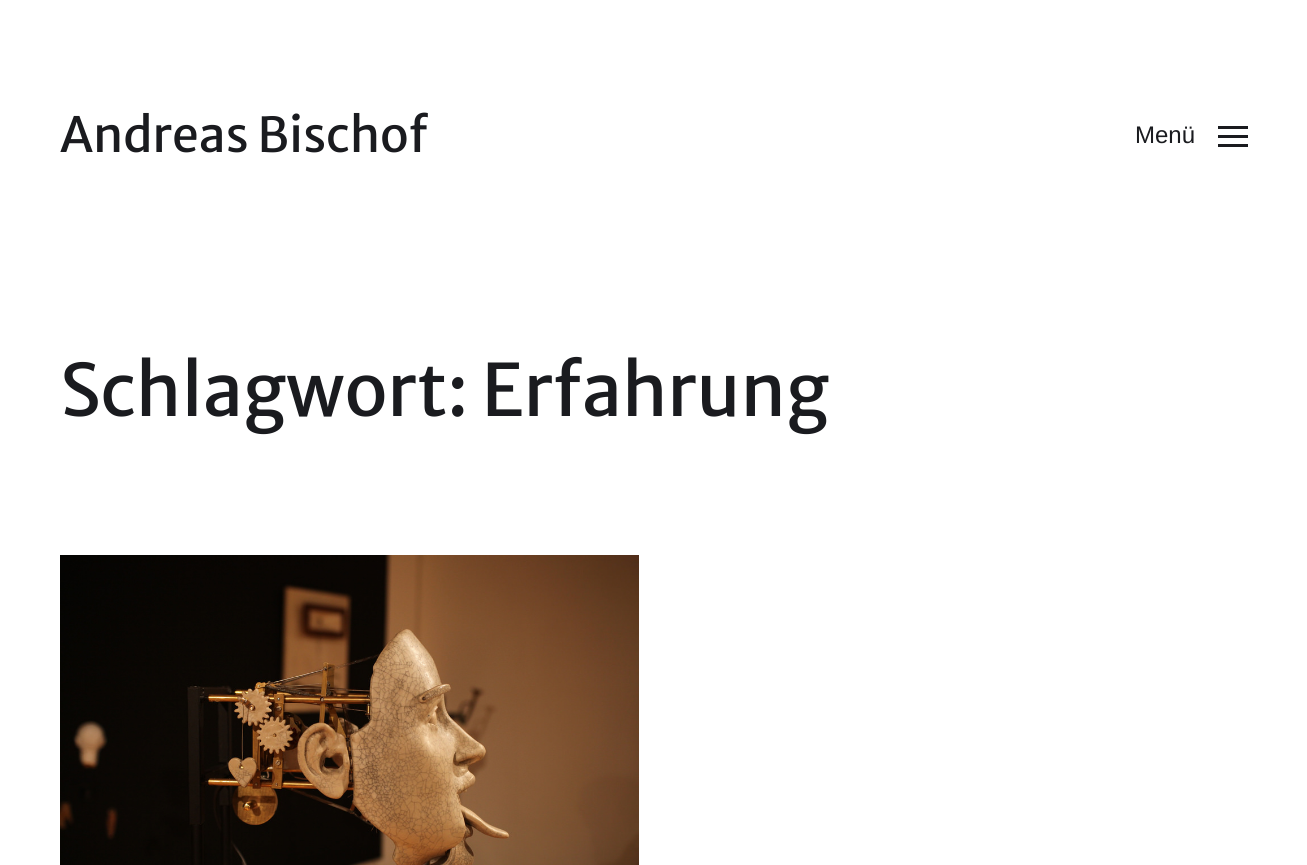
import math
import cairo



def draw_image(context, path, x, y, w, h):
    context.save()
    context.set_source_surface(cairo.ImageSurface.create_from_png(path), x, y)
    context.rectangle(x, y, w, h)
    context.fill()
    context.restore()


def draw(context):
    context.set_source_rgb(1, 1, 1)
    context.paint()
    context.set_source_rgb(26 / 255, 27 / 255, 31 / 255)
    context.rectangle(1218, 126, 30, 3)
    context.fill()
    context.rectangle(1218, 135, 30, 3)
    context.fill()
    context.rectangle(1218, 144, 30, 3)
    context.fill()
    draw_image(context, "images/1.png", 60, 555, 579, 310)
    context.select_font_face("Merriweather Sans")
    context.set_font_size(48)
    context.move_to(60, 152)
    context.show_text("Andreas Bischof")
    context.select_font_face("Liberation Sans")
    context.set_font_size(24)
    context.move_to(1135, 143)
    context.show_text("Menü")
    context.select_font_face("Merriweather Sans")
    context.set_font_size(72)
    context.move_to(60, 416)
    context.show_text("Schlagwort: Erfahrung")


surface = cairo.ImageSurface(cairo.Format.RGB24, 1307, 865)
context = cairo.Context(surface)
options = cairo.FontOptions()
options.set_hint_metrics(cairo.HintMetrics.OFF)
options.set_hint_style(cairo.HintStyle.NONE)
context.set_font_options(options)
context.set_miter_limit(4)
draw(context)
surface.write_to_png("out.png")
